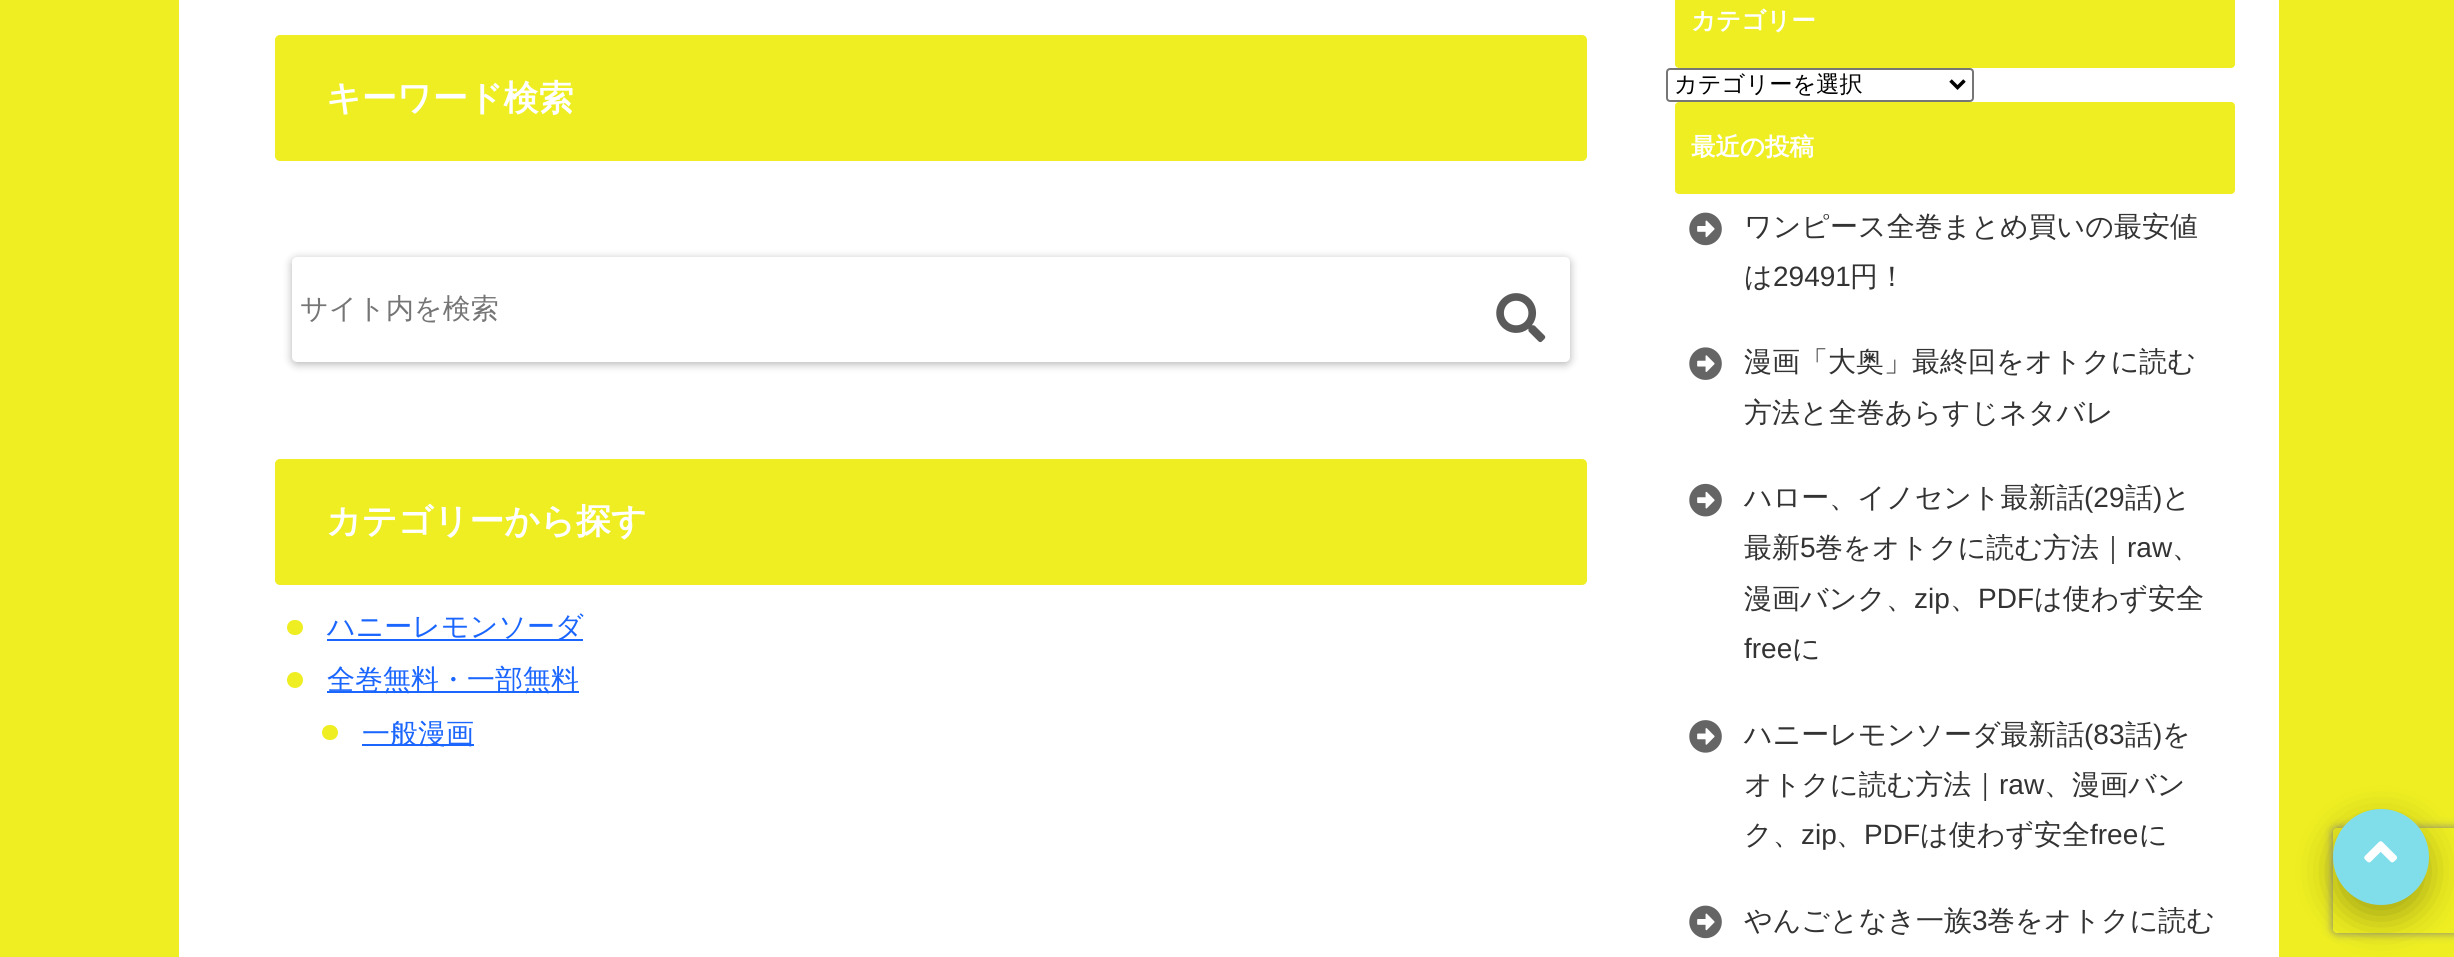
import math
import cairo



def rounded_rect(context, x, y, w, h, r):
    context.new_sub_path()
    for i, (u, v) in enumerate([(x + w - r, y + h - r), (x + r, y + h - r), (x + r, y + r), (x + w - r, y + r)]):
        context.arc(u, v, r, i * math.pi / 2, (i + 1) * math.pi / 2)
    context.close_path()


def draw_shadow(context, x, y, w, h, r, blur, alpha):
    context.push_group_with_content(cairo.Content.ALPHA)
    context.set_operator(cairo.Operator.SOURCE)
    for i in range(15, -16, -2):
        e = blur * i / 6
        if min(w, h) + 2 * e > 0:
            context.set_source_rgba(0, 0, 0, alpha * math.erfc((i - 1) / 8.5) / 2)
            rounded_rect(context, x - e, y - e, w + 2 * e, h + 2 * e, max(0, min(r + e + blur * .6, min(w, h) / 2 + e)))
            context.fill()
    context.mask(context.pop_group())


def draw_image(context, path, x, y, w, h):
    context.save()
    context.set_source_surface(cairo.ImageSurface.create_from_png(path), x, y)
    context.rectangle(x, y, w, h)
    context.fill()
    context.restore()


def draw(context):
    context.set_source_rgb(238 / 255, 238 / 255, 34 / 255)
    context.paint()
    context.set_source_rgb(1, 1, 1)
    context.rectangle(179, 0, 2100, 957)
    context.fill()
    context.set_source_rgb(238 / 255, 238 / 255, 34 / 255)
    rounded_rect(context, 275, 35, 1312, 126, 5)
    context.fill()
    context.set_source_rgb(0, 0, 0)
    draw_shadow(context, 292, 259, 1278, 105, 5, 4.5, 0.3)
    context.set_source_rgb(1, 1, 1)
    rounded_rect(context, 292, 257, 1278, 105, 5)
    context.fill()
    draw_image(context, "images/1.png", 1496, 293, 50, 50)
    context.set_source_rgb(238 / 255, 238 / 255, 34 / 255)
    rounded_rect(context, 275, 459, 1312, 126, 5)
    context.fill()
    rounded_rect(context, 287, 620, 16, 15, 7.5)
    context.fill()
    context.set_source_rgb(26 / 255, 102 / 255, 1)
    context.rectangle(327, 639, 256, 2)
    context.fill()
    context.set_source_rgb(238 / 255, 238 / 255, 34 / 255)
    context.arc(295, 680, 8, 0, 2 * math.pi)
    context.fill()
    context.set_source_rgb(26 / 255, 102 / 255, 1)
    context.rectangle(327, 691, 252, 2)
    context.fill()
    context.set_source_rgb(238 / 255, 238 / 255, 34 / 255)
    rounded_rect(context, 322, 725, 16, 15, 7.5)
    context.fill()
    context.set_source_rgb(26 / 255, 102 / 255, 1)
    context.rectangle(362, 744, 112, 2)
    context.fill()
    context.set_source_rgb(238 / 255, 238 / 255, 34 / 255)
    rounded_rect(context, 1675, -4, 560, 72, 4)
    context.fill()
    rounded_rect(context, 1667, 69, 306, 32, 3)
    context.set_source_rgb(118 / 255, 118 / 255, 118 / 255)
    context.stroke()
    context.new_path()
    context.move_to(1950.5, 80.5)
    context.line_to(1957.5, 87.5)
    context.line_to(1964.5, 80.5)
    context.set_source_rgb(0, 0, 0)
    context.set_line_width(3.5)
    context.stroke()
    context.set_source_rgb(238 / 255, 238 / 255, 34 / 255)
    rounded_rect(context, 1675, 102, 560, 92, 4)
    context.fill()
    draw_image(context, "images/2.png", 1689, 212, 33, 34)
    draw_image(context, "images/3.png", 1689, 347, 33, 33)
    draw_image(context, "images/4.png", 1689, 483, 33, 34)
    draw_image(context, "images/5.png", 1689, 720, 33, 33)
    draw_image(context, "images/2.png", 1689, 905, 33, 34)
    context.set_source_rgb(0, 0, 0)
    draw_shadow(context, 2333, 823, 96, 96, 48, 17.5, 0.3)
    context.save()
    context.set_fill_rule(cairo.FillRule.EVEN_ODD)
    context.new_path()
    context.move_to(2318, 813)
    context.line_to(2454, 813)
    context.line_to(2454, 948)
    context.line_to(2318, 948)
    context.close_path()
    context.move_to(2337, 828)
    context.line_to(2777, 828)
    context.curve_to(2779, 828, 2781, 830, 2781, 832)
    context.line_to(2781, 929)
    context.curve_to(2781, 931, 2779, 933, 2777, 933)
    context.line_to(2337, 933)
    context.curve_to(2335, 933, 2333, 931, 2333, 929)
    context.line_to(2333, 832)
    context.curve_to(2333, 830, 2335, 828, 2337, 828)
    context.close_path()
    context.clip()
    context.set_source_rgb(128 / 255, 128 / 255, 128 / 255)
    draw_shadow(context, 2333, 828, 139, 105, 4, 4.5, 1)
    context.restore()
    context.set_source_rgb(128 / 255, 222 / 255, 234 / 255)
    context.arc(2381, 857, 48, 0, 2 * math.pi)
    context.fill()
    draw_image(context, "images/6.png", 2364, 841, 33, 22)
    context.select_font_face("WenQuanYi Zen Hei", cairo.FontSlant.NORMAL, cairo.FontWeight.BOLD)
    context.set_font_size(35)
    context.set_source_rgb(1, 1, 1)
    context.move_to(326, 110)
    context.show_text("キーワード検索")
    context.select_font_face("WenQuanYi Zen Hei Medium")
    context.set_font_size(28)
    context.set_source_rgb(117 / 255, 117 / 255, 117 / 255)
    context.move_to(300, 318)
    context.show_text("サイト内を検索")
    context.select_font_face("WenQuanYi Zen Hei", cairo.FontSlant.NORMAL, cairo.FontWeight.BOLD)
    context.set_font_size(35)
    context.set_source_rgb(1, 1, 1)
    context.move_to(326, 533)
    context.show_text("カテゴリーから探す")
    context.select_font_face("WenQuanYi Zen Hei Medium")
    context.set_font_size(28)
    context.set_source_rgb(26 / 255, 102 / 255, 1)
    context.move_to(327, 636)
    context.show_text("ハニーレモンソーダ")
    context.move_to(327, 689)
    context.show_text("全巻無料・一部無料")
    context.move_to(362, 743)
    context.show_text("一般漫画")
    context.select_font_face("WenQuanYi Zen Hei", cairo.FontSlant.NORMAL, cairo.FontWeight.BOLD)
    context.set_font_size(24.5)
    context.set_source_rgb(1, 1, 1)
    context.move_to(1691, 29)
    context.show_text("カテゴリー")
    context.select_font_face("WenQuanYi Zen Hei Medium")
    context.set_font_size(23.25)
    context.set_source_rgb(0, 0, 0)
    context.move_to(1674, 92)
    context.show_text("カテゴリーを選択")
    context.select_font_face("WenQuanYi Zen Hei", cairo.FontSlant.NORMAL, cairo.FontWeight.BOLD)
    context.set_font_size(24.5)
    context.set_source_rgb(1, 1, 1)
    context.move_to(1691, 155)
    context.show_text("最近の投稿")
    context.select_font_face("WenQuanYi Zen Hei Medium")
    context.set_font_size(28)
    context.set_source_rgb(51 / 255, 51 / 255, 51 / 255)
    context.move_to(1744, 236)
    context.show_text("ワンピース全巻まとめ買いの最安値")
    context.move_to(1744, 286)
    context.show_text("は")
    context.select_font_face("Liberation Sans")
    context.move_to(1773, 286)
    context.show_text("29491")
    context.select_font_face("WenQuanYi Zen Hei Medium")
    context.move_to(1850, 286)
    context.show_text("円！")
    context.move_to(1744, 371)
    context.show_text("漫画「大奥」最終回をオトクに読む")
    context.move_to(1744, 422)
    context.show_text("方法と全巻あらすじネタバレ")
    context.move_to(1744, 507)
    context.show_text("ハロー、イノセント最新話")
    context.select_font_face("Liberation Sans")
    context.move_to(2084, 507)
    context.show_text("(29")
    context.select_font_face("WenQuanYi Zen Hei Medium")
    context.move_to(2125, 507)
    context.show_text("話")
    context.select_font_face("Liberation Sans")
    context.move_to(2153, 507)
    context.show_text(")")
    context.select_font_face("WenQuanYi Zen Hei Medium")
    context.move_to(2162, 507)
    context.show_text("と")
    context.move_to(1744, 557)
    context.show_text("最新")
    context.select_font_face("Liberation Sans")
    context.move_to(1800, 557)
    context.show_text("5")
    context.select_font_face("WenQuanYi Zen Hei Medium")
    context.move_to(1815, 557)
    context.show_text("巻をオトクに読む方法｜")
    context.select_font_face("Liberation Sans")
    context.move_to(2127, 557)
    context.show_text("raw")
    context.select_font_face("WenQuanYi Zen Hei Medium")
    context.move_to(2172, 557)
    context.show_text("、")
    context.move_to(1744, 608)
    context.show_text("漫画バンク、")
    context.select_font_face("Liberation Sans")
    context.move_to(1914, 608)
    context.show_text("zip")
    context.select_font_face("WenQuanYi Zen Hei Medium")
    context.move_to(1950, 608)
    context.show_text("、")
    context.select_font_face("Liberation Sans")
    context.move_to(1978, 608)
    context.show_text("PDF")
    context.select_font_face("WenQuanYi Zen Hei Medium")
    context.move_to(2034, 608)
    context.show_text("は使わず安全")
    context.select_font_face("Liberation Sans")
    context.move_to(1744, 658)
    context.show_text("free")
    context.select_font_face("WenQuanYi Zen Hei Medium")
    context.move_to(1792, 658)
    context.show_text("に")
    context.move_to(1744, 744)
    context.show_text("ハニーレモンソーダ最新話")
    context.select_font_face("Liberation Sans")
    context.move_to(2084, 744)
    context.show_text("(83")
    context.select_font_face("WenQuanYi Zen Hei Medium")
    context.move_to(2125, 744)
    context.show_text("話")
    context.select_font_face("Liberation Sans")
    context.move_to(2153, 744)
    context.show_text(")")
    context.select_font_face("WenQuanYi Zen Hei Medium")
    context.move_to(2162, 744)
    context.show_text("を")
    context.move_to(1744, 794)
    context.show_text("オトクに読む方法｜")
    context.select_font_face("Liberation Sans")
    context.move_to(1999, 794)
    context.show_text("raw")
    context.select_font_face("WenQuanYi Zen Hei Medium")
    context.move_to(2044, 794)
    context.show_text("、漫画バン")
    context.move_to(1744, 844)
    context.show_text("ク、")
    context.select_font_face("Liberation Sans")
    context.move_to(1801, 844)
    context.show_text("zip")
    context.select_font_face("WenQuanYi Zen Hei Medium")
    context.move_to(1836, 844)
    context.show_text("、")
    context.select_font_face("Liberation Sans")
    context.move_to(1864, 844)
    context.show_text("PDF")
    context.select_font_face("WenQuanYi Zen Hei Medium")
    context.move_to(1920, 844)
    context.show_text("は使わず安全")
    context.select_font_face("Liberation Sans")
    context.move_to(2090, 844)
    context.show_text("free")
    context.select_font_face("WenQuanYi Zen Hei Medium")
    context.move_to(2139, 844)
    context.show_text("に")
    context.move_to(1744, 930)
    context.show_text("やんごとなき一族")
    context.select_font_face("Liberation Sans")
    context.move_to(1972, 930)
    context.show_text("3")
    context.select_font_face("WenQuanYi Zen Hei Medium")
    context.move_to(1987, 930)
    context.show_text("巻をオトクに読む")


surface = cairo.ImageSurface(cairo.Format.RGB24, 2454, 957)
context = cairo.Context(surface)
options = cairo.FontOptions()
options.set_hint_metrics(cairo.HintMetrics.OFF)
options.set_hint_style(cairo.HintStyle.NONE)
context.set_font_options(options)
context.set_miter_limit(4)
draw(context)
surface.write_to_png("out.png")
